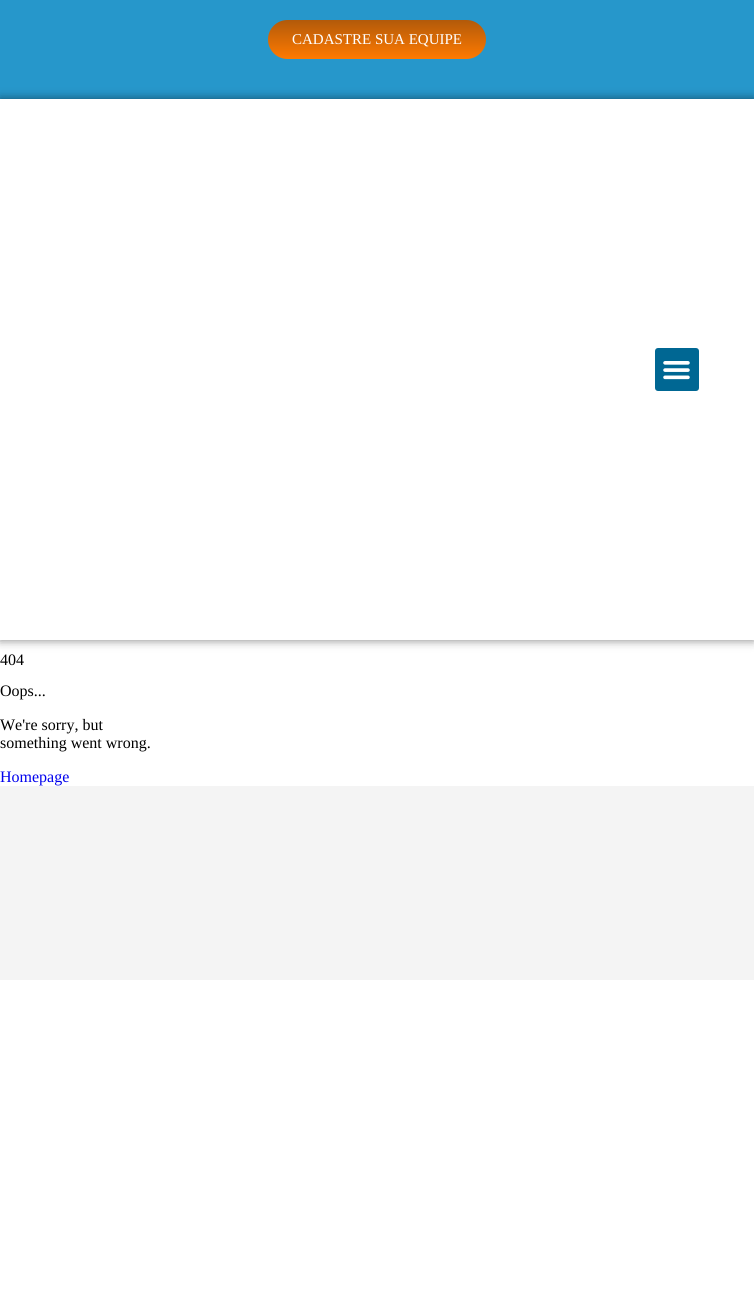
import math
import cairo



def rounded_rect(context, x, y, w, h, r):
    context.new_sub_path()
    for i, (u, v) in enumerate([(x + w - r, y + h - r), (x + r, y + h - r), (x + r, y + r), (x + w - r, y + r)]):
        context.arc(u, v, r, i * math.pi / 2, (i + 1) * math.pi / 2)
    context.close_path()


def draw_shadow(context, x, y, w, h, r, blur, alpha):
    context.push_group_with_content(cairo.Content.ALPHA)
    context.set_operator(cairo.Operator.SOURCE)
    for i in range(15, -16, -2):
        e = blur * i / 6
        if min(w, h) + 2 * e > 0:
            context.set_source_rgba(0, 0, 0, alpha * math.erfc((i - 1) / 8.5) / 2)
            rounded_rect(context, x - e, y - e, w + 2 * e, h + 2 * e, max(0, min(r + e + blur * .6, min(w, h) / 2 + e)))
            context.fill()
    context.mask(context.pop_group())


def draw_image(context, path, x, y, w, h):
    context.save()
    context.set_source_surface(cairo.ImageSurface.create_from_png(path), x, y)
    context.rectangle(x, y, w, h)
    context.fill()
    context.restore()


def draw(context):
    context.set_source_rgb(1, 1, 1)
    context.paint()
    context.set_source_rgb(38 / 255, 151 / 255, 203 / 255)
    context.rectangle(0, 0, 754, 99)
    context.fill()
    gradient = cairo.LinearGradient(377, 20, 377, 59)
    gradient.add_color_stop_rgba(0, 178 / 255, 90 / 255, 10 / 255, 1)
    gradient.add_color_stop_rgba(1, 1, 122 / 255, 1 / 255, 1)
    context.set_source(gradient)
    rounded_rect(context, 268, 20, 218, 39, 19.5)
    context.fill()
    context.save()
    context.set_fill_rule(cairo.FillRule.EVEN_ODD)
    context.new_path()
    context.move_to(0, 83)
    context.line_to(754, 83)
    context.line_to(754, 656)
    context.line_to(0, 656)
    context.close_path()
    context.move_to(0, 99)
    context.line_to(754, 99)
    context.line_to(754, 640)
    context.line_to(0, 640)
    context.close_path()
    context.clip()
    context.set_source_rgb(0, 0, 0)
    draw_shadow(context, 0, 99, 754, 541, 0, 5, 0.5)
    context.restore()
    context.set_source_rgb(0, 103 / 255, 147 / 255)
    rounded_rect(context, 655, 348, 44, 43, 3)
    context.fill()
    draw_image(context, "images/1.png", 663, 361, 27, 19)
    context.set_source_rgb(244 / 255, 244 / 255, 244 / 255)
    context.rectangle(0, 786, 754, 194)
    context.fill()
    context.select_font_face("Liberation Serif")
    context.set_font_size(15)
    context.set_source_rgb(1, 1, 1)
    context.move_to(292, 44)
    context.show_text("CADASTRE SUA EQUIPE")
    context.set_font_size(16)
    context.set_source_rgb(0, 0, 0)
    context.move_to(0, 665)
    context.show_text("404")
    context.move_to(0, 696)
    context.show_text("Oops...")
    context.move_to(0, 730)
    context.show_text("We're sorry, but")
    context.move_to(0, 748)
    context.show_text("something went wrong.")
    context.set_source_rgb(0, 0, 238 / 255)
    context.move_to(0, 782)
    context.show_text("Homepage")


surface = cairo.ImageSurface(cairo.Format.RGB24, 754, 1300)
context = cairo.Context(surface)
options = cairo.FontOptions()
options.set_hint_metrics(cairo.HintMetrics.OFF)
options.set_hint_style(cairo.HintStyle.NONE)
context.set_font_options(options)
context.set_miter_limit(4)
draw(context)
surface.write_to_png("out.png")
